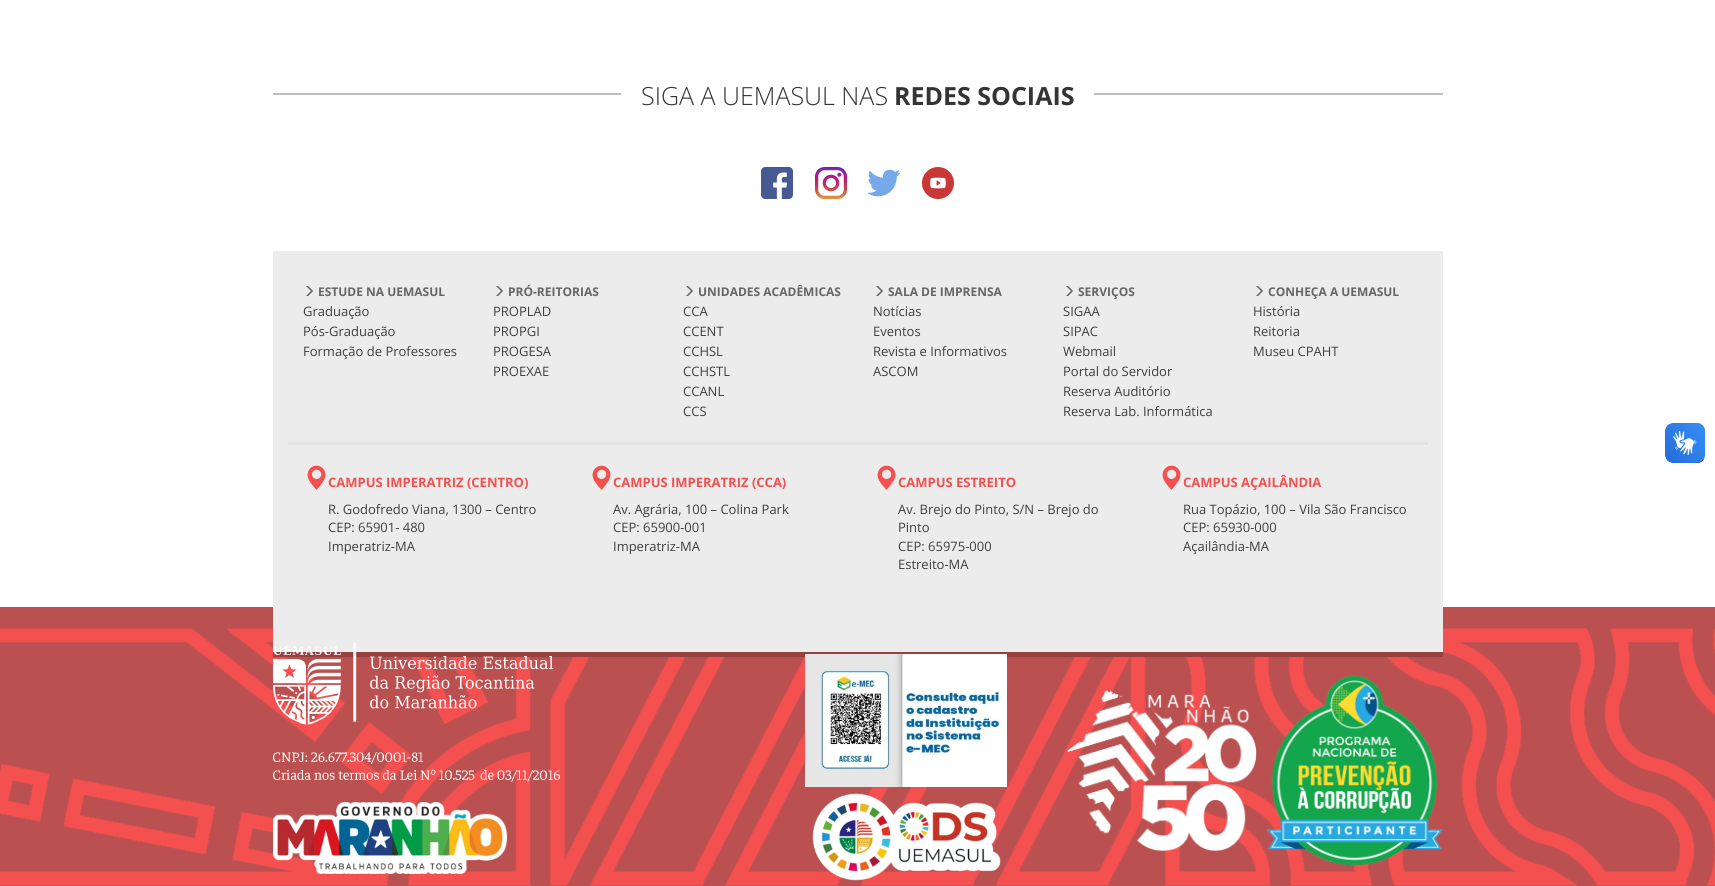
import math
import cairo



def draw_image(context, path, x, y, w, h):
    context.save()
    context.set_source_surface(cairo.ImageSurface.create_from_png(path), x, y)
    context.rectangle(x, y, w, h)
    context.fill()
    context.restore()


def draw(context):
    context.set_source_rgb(1, 1, 1)
    context.paint()
    context.set_source_rgb(191 / 255, 191 / 255, 191 / 255)
    context.rectangle(273, 93, 1170, 2)
    context.fill()
    context.set_source_rgb(1, 1, 1)
    context.rectangle(621, 93, 473, 2)
    context.fill()
    draw_image(context, "images/1.png", 761, 167, 32, 32)
    draw_image(context, "images/2.png", 815, 167, 32, 32)
    draw_image(context, "images/3.png", 868, 169, 32, 28)
    draw_image(context, "images/4.png", 922, 167, 32, 32)
    context.set_source_rgb(187 / 255, 80 / 255, 80 / 255)
    context.rectangle(0, 607, 1715, 279)
    context.fill()
    draw_image(context, "images/9.png", 0, 628, 1715, 258)
    context.set_source_rgb(236 / 255, 236 / 255, 236 / 255)
    context.rectangle(273, 251, 1170, 401)
    context.fill()
    context.set_source_rgb(150 / 255, 64 / 255, 64 / 255)
    context.rectangle(273, 652, 1170, 5)
    context.fill()
    draw_image(context, "images/5.png", 306, 286, 7, 10)
    draw_image(context, "images/5.png", 496, 286, 7, 10)
    draw_image(context, "images/5.png", 686, 286, 7, 10)
    draw_image(context, "images/5.png", 876, 286, 7, 10)
    draw_image(context, "images/5.png", 1066, 286, 7, 10)
    draw_image(context, "images/5.png", 1256, 286, 7, 10)
    context.set_source_rgb(226 / 255, 226 / 255, 226 / 255)
    context.rectangle(288, 442, 1140, 3)
    context.fill()
    draw_image(context, "images/6.png", 307, 465, 19, 25)
    draw_image(context, "images/6.png", 592, 465, 19, 25)
    draw_image(context, "images/6.png", 877, 465, 19, 25)
    draw_image(context, "images/6.png", 1162, 465, 19, 25)
    draw_image(context, "images/7.png", 1665, 423, 40, 40)
    draw_image(context, "images/8.png", 1665, 423, 40, 40)
    draw_image(context, "images/10.png", 273, 643, 287, 139)
    draw_image(context, "images/11.png", 273, 802, 234, 72)
    draw_image(context, "images/12.png", 805, 654, 202, 133)
    draw_image(context, "images/13.png", 812, 793, 189, 88)
    draw_image(context, "images/14.png", 1067, 675, 376, 191)
    context.select_font_face("Open Sans Light")
    context.set_font_size(25)
    context.set_source_rgb(52 / 255, 52 / 255, 52 / 255)
    context.move_to(641, 105)
    context.show_text("SIGA A UEMASUL NAS")
    context.select_font_face("Open Sans", cairo.FontSlant.NORMAL, cairo.FontWeight.BOLD)
    context.move_to(894, 105)
    context.show_text("REDES SOCIAIS")
    context.set_font_size(12)
    context.set_source_rgb(102 / 255, 102 / 255, 102 / 255)
    context.move_to(318, 296)
    context.show_text("ESTUDE NA UEMASUL")
    context.select_font_face("Open Sans")
    context.set_font_size(13)
    context.set_source_rgb(63 / 255, 63 / 255, 63 / 255)
    context.move_to(303, 316)
    context.show_text("Graduação")
    context.move_to(303, 336)
    context.show_text("Pós-Graduação")
    context.move_to(303, 356)
    context.show_text("Formação de Professores")
    context.select_font_face("Open Sans", cairo.FontSlant.NORMAL, cairo.FontWeight.BOLD)
    context.set_font_size(12)
    context.set_source_rgb(102 / 255, 102 / 255, 102 / 255)
    context.move_to(508, 296)
    context.show_text("PRÓ-REITORIAS")
    context.select_font_face("Open Sans")
    context.set_font_size(13)
    context.set_source_rgb(63 / 255, 63 / 255, 63 / 255)
    context.move_to(493, 316)
    context.show_text("PROPLAD")
    context.move_to(493, 336)
    context.show_text("PROPGI")
    context.move_to(493, 356)
    context.show_text("PROGESA")
    context.move_to(493, 376)
    context.show_text("PROEXAE")
    context.select_font_face("Open Sans", cairo.FontSlant.NORMAL, cairo.FontWeight.BOLD)
    context.set_font_size(12)
    context.set_source_rgb(102 / 255, 102 / 255, 102 / 255)
    context.move_to(698, 296)
    context.show_text("UNIDADES ACADÊMICAS")
    context.select_font_face("Open Sans")
    context.set_font_size(13)
    context.set_source_rgb(63 / 255, 63 / 255, 63 / 255)
    context.move_to(683, 316)
    context.show_text("CCA")
    context.move_to(683, 336)
    context.show_text("CCENT")
    context.move_to(683, 356)
    context.show_text("CCHSL")
    context.move_to(683, 376)
    context.show_text("CCHSTL")
    context.move_to(683, 396)
    context.show_text("CCANL")
    context.move_to(683, 416)
    context.show_text("CCS")
    context.select_font_face("Open Sans", cairo.FontSlant.NORMAL, cairo.FontWeight.BOLD)
    context.set_font_size(12)
    context.set_source_rgb(102 / 255, 102 / 255, 102 / 255)
    context.move_to(888, 296)
    context.show_text("SALA DE IMPRENSA")
    context.select_font_face("Open Sans")
    context.set_font_size(13)
    context.set_source_rgb(63 / 255, 63 / 255, 63 / 255)
    context.move_to(873, 316)
    context.show_text("Notícias")
    context.move_to(873, 336)
    context.show_text("Eventos")
    context.move_to(873, 356)
    context.show_text("Revista e Informativos")
    context.move_to(873, 376)
    context.show_text("ASCOM")
    context.select_font_face("Open Sans", cairo.FontSlant.NORMAL, cairo.FontWeight.BOLD)
    context.set_font_size(12)
    context.set_source_rgb(102 / 255, 102 / 255, 102 / 255)
    context.move_to(1078, 296)
    context.show_text("SERVIÇOS")
    context.select_font_face("Open Sans")
    context.set_font_size(13)
    context.set_source_rgb(63 / 255, 63 / 255, 63 / 255)
    context.move_to(1063, 316)
    context.show_text("SIGAA")
    context.move_to(1063, 336)
    context.show_text("SIPAC")
    context.move_to(1063, 356)
    context.show_text("Webmail")
    context.move_to(1063, 376)
    context.show_text("Portal do Servidor")
    context.move_to(1063, 396)
    context.show_text("Reserva Auditório")
    context.move_to(1063, 416)
    context.show_text("Reserva Lab. Informática")
    context.select_font_face("Open Sans", cairo.FontSlant.NORMAL, cairo.FontWeight.BOLD)
    context.set_font_size(12)
    context.set_source_rgb(102 / 255, 102 / 255, 102 / 255)
    context.move_to(1268, 296)
    context.show_text("CONHEÇA A UEMASUL")
    context.select_font_face("Open Sans")
    context.set_font_size(13)
    context.set_source_rgb(63 / 255, 63 / 255, 63 / 255)
    context.move_to(1253, 316)
    context.show_text("História")
    context.move_to(1253, 336)
    context.show_text("Reitoria")
    context.move_to(1253, 356)
    context.show_text("Museu CPAHT")
    context.select_font_face("Open Sans", cairo.FontSlant.NORMAL, cairo.FontWeight.BOLD)
    context.set_source_rgb(245 / 255, 80 / 255, 80 / 255)
    context.move_to(328, 487)
    context.show_text("CAMPUS IMPERATRIZ (CENTRO)")
    context.select_font_face("Open Sans")
    context.set_source_rgb(63 / 255, 63 / 255, 63 / 255)
    context.move_to(328, 514)
    context.show_text("R. Godofredo Viana, 1300 – Centro")
    context.move_to(328, 532)
    context.show_text("CEP: 65901- 480")
    context.move_to(328, 551)
    context.show_text("Imperatriz-MA")
    context.select_font_face("Open Sans", cairo.FontSlant.NORMAL, cairo.FontWeight.BOLD)
    context.set_source_rgb(245 / 255, 80 / 255, 80 / 255)
    context.move_to(613, 487)
    context.show_text("CAMPUS IMPERATRIZ (CCA)")
    context.select_font_face("Open Sans")
    context.set_source_rgb(63 / 255, 63 / 255, 63 / 255)
    context.move_to(613, 514)
    context.show_text("Av. Agrária, 100 – Colina Park")
    context.move_to(613, 532)
    context.show_text("CEP: 65900-001")
    context.move_to(613, 551)
    context.show_text("Imperatriz-MA")
    context.select_font_face("Open Sans", cairo.FontSlant.NORMAL, cairo.FontWeight.BOLD)
    context.set_source_rgb(245 / 255, 80 / 255, 80 / 255)
    context.move_to(898, 487)
    context.show_text("CAMPUS ESTREITO")
    context.select_font_face("Open Sans")
    context.set_source_rgb(63 / 255, 63 / 255, 63 / 255)
    context.move_to(898, 514)
    context.show_text("Av. Brejo do Pinto, S/N – Brejo do")
    context.move_to(898, 532)
    context.show_text("Pinto")
    context.move_to(898, 551)
    context.show_text("CEP: 65975-000")
    context.move_to(898, 569)
    context.show_text("Estreito-MA")
    context.select_font_face("Open Sans", cairo.FontSlant.NORMAL, cairo.FontWeight.BOLD)
    context.set_source_rgb(245 / 255, 80 / 255, 80 / 255)
    context.move_to(1183, 487)
    context.show_text("CAMPUS AÇAILÂNDIA")
    context.select_font_face("Open Sans")
    context.set_source_rgb(63 / 255, 63 / 255, 63 / 255)
    context.move_to(1183, 514)
    context.show_text("Rua Topázio, 100 – Vila São Francisco")
    context.move_to(1183, 532)
    context.show_text("CEP: 65930-000")
    context.move_to(1183, 551)
    context.show_text("Açailândia-MA")


surface = cairo.ImageSurface(cairo.Format.RGB24, 1715, 886)
context = cairo.Context(surface)
options = cairo.FontOptions()
options.set_hint_metrics(cairo.HintMetrics.OFF)
options.set_hint_style(cairo.HintStyle.NONE)
context.set_font_options(options)
context.set_miter_limit(4)
draw(context)
surface.write_to_png("out.png")
